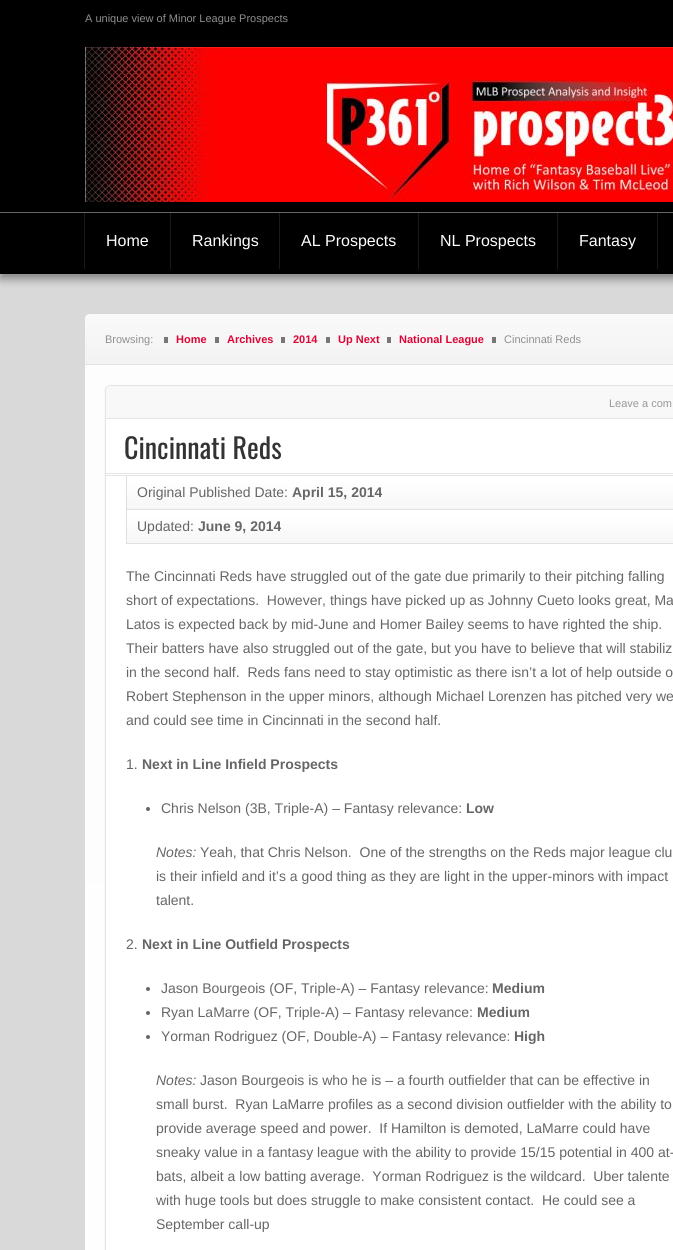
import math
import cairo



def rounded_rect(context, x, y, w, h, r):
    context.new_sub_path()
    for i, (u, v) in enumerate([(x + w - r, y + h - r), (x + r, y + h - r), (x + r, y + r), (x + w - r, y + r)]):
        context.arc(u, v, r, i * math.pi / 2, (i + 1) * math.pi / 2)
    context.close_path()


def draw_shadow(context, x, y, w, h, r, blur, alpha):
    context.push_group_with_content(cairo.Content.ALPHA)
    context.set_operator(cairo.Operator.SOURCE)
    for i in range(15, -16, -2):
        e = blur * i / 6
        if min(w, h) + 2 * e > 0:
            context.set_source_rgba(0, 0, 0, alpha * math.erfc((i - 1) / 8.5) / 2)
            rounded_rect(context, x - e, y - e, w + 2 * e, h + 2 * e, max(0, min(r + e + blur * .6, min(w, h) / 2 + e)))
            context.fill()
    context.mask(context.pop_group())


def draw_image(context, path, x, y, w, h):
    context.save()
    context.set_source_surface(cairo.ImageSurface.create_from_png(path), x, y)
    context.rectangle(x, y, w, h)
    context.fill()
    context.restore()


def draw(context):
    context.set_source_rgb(217 / 255, 217 / 255, 217 / 255)
    context.paint()
    context.set_source_rgb(0, 0, 0)
    context.rectangle(0, 0, 673, 37)
    context.fill()
    context.set_source_rgb(0, 0, 0)
    draw_shadow(context, 0, 217, 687, 62, 0, 4.5, 0.4)
    context.set_source_rgb(0, 0, 0)
    context.rectangle(0, 37, 673, 175)
    context.fill()
    draw_image(context, "images/1.png", 85, 47, 588, 155)
    context.rectangle(0, 213, 673, 61)
    context.fill()
    context.set_source_rgb(102 / 255, 102 / 255, 102 / 255)
    context.rectangle(0, 212, 673, 1)
    context.fill()
    context.set_source_rgb(26 / 255, 26 / 255, 26 / 255)
    context.rectangle(84, 213, 1, 56)
    context.fill()
    context.rectangle(170, 213, 1, 56)
    context.fill()
    context.rectangle(279, 213, 1, 56)
    context.fill()
    context.rectangle(418, 213, 1, 56)
    context.fill()
    context.rectangle(557, 213, 1, 56)
    context.fill()
    context.rectangle(657, 213, 1, 56)
    context.fill()
    gradient = cairo.LinearGradient(85, 314, 85, 364)
    gradient.add_color_stop_rgba(0, 250 / 255, 250 / 255, 250 / 255, 1)
    gradient.add_color_stop_rgba(1, 242 / 255, 242 / 255, 242 / 255, 1)
    context.set_source(gradient)
    context.new_path()
    context.move_to(90, 314)
    context.line_to(673, 314)
    context.curve_to(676, 314, 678, 316, 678, 319)
    context.line_to(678, 364)
    context.line_to(85, 364)
    context.line_to(85, 319)
    context.curve_to(85, 316, 87, 314, 90, 314)
    context.close_path()
    context.fill()
    context.set_source_rgb(228 / 255, 228 / 255, 228 / 255)
    context.rectangle(85, 364, 588, 1)
    context.fill()
    context.set_source_rgb(119 / 255, 119 / 255, 119 / 255)
    context.rectangle(164, 337, 4, 6)
    context.fill()
    context.rectangle(215, 337, 4, 6)
    context.fill()
    context.rectangle(281, 337, 4, 6)
    context.fill()
    context.rectangle(326, 337, 4, 6)
    context.fill()
    context.rectangle(387, 337, 4, 6)
    context.fill()
    context.rectangle(492, 337, 4, 6)
    context.fill()
    gradient = cairo.LinearGradient(85, 365, 85, 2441)
    gradient.add_color_stop_rgba(0, 253 / 255, 253 / 255, 253 / 255, 1)
    gradient.add_color_stop_rgba(1, 1, 1, 1, 1)
    context.set_source(gradient)
    context.rectangle(85, 365, 588, 885)
    context.fill()
    context.set_source_rgb(231 / 255, 231 / 255, 231 / 255)
    draw_shadow(context, 105, 386, 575, 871, 5, 0.5, 1)
    context.set_source_rgb(1, 1, 1)
    rounded_rect(context, 105.5, 385.5, 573, 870, 4.5)
    context.fill_preserve()
    context.set_source_rgb(229 / 255, 229 / 255, 229 / 255)
    context.set_line_width(1)
    context.stroke()
    context.set_source_rgb(248 / 255, 248 / 255, 248 / 255)
    context.new_path()
    context.move_to(111, 386)
    context.line_to(673, 386)
    context.curve_to(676, 386, 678, 388, 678, 391)
    context.line_to(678, 419)
    context.line_to(106, 419)
    context.line_to(106, 391)
    context.curve_to(106, 388, 108, 386, 111, 386)
    context.close_path()
    context.fill()
    context.set_source_rgb(228 / 255, 228 / 255, 228 / 255)
    context.rectangle(106, 418, 567, 1)
    context.fill()
    context.set_source_rgb(229 / 255, 229 / 255, 229 / 255)
    context.rectangle(106, 473, 567, 1)
    context.fill()
    context.rectangle(106, 475, 567, 1)
    context.fill()
    context.set_source_rgb(224 / 255, 224 / 255, 224 / 255)
    context.rectangle(126, 476, 547, 68)
    context.fill()
    draw_image(context, "images/2.png", 127, 476, 546, 33)
    draw_image(context, "images/2.png", 127, 510, 546, 33)
    context.set_source_rgb(102 / 255, 102 / 255, 102 / 255)
    context.arc(148, 809, 2, 0, 2 * math.pi)
    context.fill()
    context.arc(148, 989, 2, 0, 2 * math.pi)
    context.fill()
    context.arc(148, 1013, 2, 0, 2 * math.pi)
    context.fill()
    context.arc(148, 1037, 2, 0, 2 * math.pi)
    context.fill()
    context.select_font_face("Liberation Sans")
    context.set_font_size(11)
    context.set_source_rgb(143 / 255, 143 / 255, 143 / 255)
    context.move_to(85, 22)
    context.show_text("A unique view of Minor League Prospects")
    context.set_font_size(16)
    context.set_source_rgb(1, 1, 1)
    context.move_to(106, 246)
    context.show_text("Home")
    context.move_to(192, 246)
    context.show_text("Rankings")
    context.move_to(301, 246)
    context.show_text("AL Prospects")
    context.move_to(440, 246)
    context.show_text("NL Prospects")
    context.move_to(579, 246)
    context.show_text("Fantasy")
    context.set_font_size(11)
    context.set_source_rgb(143 / 255, 143 / 255, 143 / 255)
    context.move_to(105, 343)
    context.show_text("Browsing:")
    context.select_font_face("Liberation Sans", cairo.FontSlant.NORMAL, cairo.FontWeight.BOLD)
    context.set_source_rgb(221 / 255, 5 / 255, 54 / 255)
    context.move_to(176, 343)
    context.show_text("Home")
    context.move_to(227, 343)
    context.show_text("Archives")
    context.move_to(293, 343)
    context.show_text("2014")
    context.move_to(338, 343)
    context.show_text("Up Next")
    context.move_to(399, 343)
    context.show_text("National League")
    context.select_font_face("Liberation Sans")
    context.set_source_rgb(143 / 255, 143 / 255, 143 / 255)
    context.move_to(504, 343)
    context.show_text("Cincinnati Reds")
    context.set_source_rgb(153 / 255, 153 / 255, 153 / 255)
    context.move_to(609, 407)
    context.show_text("Leave a com")
    context.select_font_face("Oswald")
    context.set_font_size(28)
    context.set_source_rgb(51 / 255, 51 / 255, 51 / 255)
    context.move_to(124, 459)
    context.show_text("Cincinnati Reds")
    context.select_font_face("Liberation Sans")
    context.set_font_size(14)
    context.set_source_rgb(102 / 255, 102 / 255, 102 / 255)
    context.move_to(137, 497)
    context.show_text("Original Published Date:")
    context.select_font_face("Liberation Sans", cairo.FontSlant.NORMAL, cairo.FontWeight.BOLD)
    context.move_to(292, 497)
    context.show_text("April 15, 2014")
    context.select_font_face("Liberation Sans")
    context.move_to(137, 531)
    context.show_text("Updated:")
    context.select_font_face("Liberation Sans", cairo.FontSlant.NORMAL, cairo.FontWeight.BOLD)
    context.move_to(198, 531)
    context.show_text("June 9, 2014")
    context.select_font_face("Liberation Sans")
    context.move_to(126, 581)
    context.show_text("The Cincinnati Reds have struggled out of the gate due primarily to their pitching falling")
    context.move_to(126, 605)
    context.show_text("short of expectations.  However, things have picked up as Johnny Cueto looks great, Ma")
    context.move_to(126, 629)
    context.show_text("Latos is expected back by mid-June and Homer Bailey seems to have righted the ship.")
    context.move_to(126, 653)
    context.show_text("Their batters have also struggled out of the gate, but you have to believe that will stabiliz")
    context.move_to(126, 677)
    context.show_text("in the second half.  Reds fans need to stay optimistic as there isn’t a lot of help outside o")
    context.move_to(126, 701)
    context.show_text("Robert Stephenson in the upper minors, although Michael Lorenzen has pitched very we")
    context.move_to(126, 725)
    context.show_text("and could see time in Cincinnati in the second half.")
    context.move_to(126, 769)
    context.show_text("1.")
    context.select_font_face("Liberation Sans", cairo.FontSlant.NORMAL, cairo.FontWeight.BOLD)
    context.move_to(142, 769)
    context.show_text("Next in Line Infield Prospects")
    context.select_font_face("Liberation Sans")
    context.move_to(161, 813)
    context.show_text("Chris Nelson (3B, Triple-A) – Fantasy relevance:")
    context.select_font_face("Liberation Sans", cairo.FontSlant.NORMAL, cairo.FontWeight.BOLD)
    context.move_to(466, 813)
    context.show_text("Low")
    context.select_font_face("Liberation Sans", cairo.FontSlant.ITALIC)
    context.move_to(156, 857)
    context.show_text("Notes:")
    context.select_font_face("Liberation Sans")
    context.move_to(200, 857)
    context.show_text("Yeah, that Chris Nelson.  One of the strengths on the Reds major league clu")
    context.move_to(156, 881)
    context.show_text("is their infield and it’s a good thing as they are light in the upper-minors with impact")
    context.move_to(156, 905)
    context.show_text("talent.")
    context.move_to(126, 949)
    context.show_text("2.")
    context.select_font_face("Liberation Sans", cairo.FontSlant.NORMAL, cairo.FontWeight.BOLD)
    context.move_to(142, 949)
    context.show_text("Next in Line Outfield Prospects")
    context.select_font_face("Liberation Sans")
    context.move_to(161, 993)
    context.show_text("Jason Bourgeois (OF, Triple-A) – Fantasy relevance:")
    context.select_font_face("Liberation Sans", cairo.FontSlant.NORMAL, cairo.FontWeight.BOLD)
    context.move_to(492, 993)
    context.show_text("Medium")
    context.select_font_face("Liberation Sans")
    context.move_to(161, 1017)
    context.show_text("Ryan LaMarre (OF, Triple-A) – Fantasy relevance:")
    context.select_font_face("Liberation Sans", cairo.FontSlant.NORMAL, cairo.FontWeight.BOLD)
    context.move_to(477, 1017)
    context.show_text("Medium")
    context.select_font_face("Liberation Sans")
    context.move_to(161, 1041)
    context.show_text("Yorman Rodriguez (OF, Double-A) – Fantasy relevance:")
    context.select_font_face("Liberation Sans", cairo.FontSlant.NORMAL, cairo.FontWeight.BOLD)
    context.move_to(514, 1041)
    context.show_text("High")
    context.select_font_face("Liberation Sans", cairo.FontSlant.ITALIC)
    context.move_to(156, 1085)
    context.show_text("Notes:")
    context.select_font_face("Liberation Sans")
    context.move_to(200, 1085)
    context.show_text("Jason Bourgeois is who he is – a fourth outfielder that can be effective in")
    context.move_to(156, 1109)
    context.show_text("small burst.  Ryan LaMarre profiles as a second division outfielder with the ability to")
    context.move_to(156, 1133)
    context.show_text("provide average speed and power.  If Hamilton is demoted, LaMarre could have")
    context.move_to(156, 1157)
    context.show_text("sneaky value in a fantasy league with the ability to provide 15/15 potential in 400 at-")
    context.move_to(156, 1181)
    context.show_text("bats, albeit a low batting average.  Yorman Rodriguez is the wildcard.  Uber talente")
    context.move_to(156, 1205)
    context.show_text("with huge tools but does struggle to make consistent contact.  He could see a")
    context.move_to(156, 1229)
    context.show_text("September call-up")


surface = cairo.ImageSurface(cairo.Format.RGB24, 673, 1250)
context = cairo.Context(surface)
options = cairo.FontOptions()
options.set_hint_metrics(cairo.HintMetrics.OFF)
options.set_hint_style(cairo.HintStyle.NONE)
context.set_font_options(options)
context.set_miter_limit(4)
draw(context)
surface.write_to_png("out.png")
